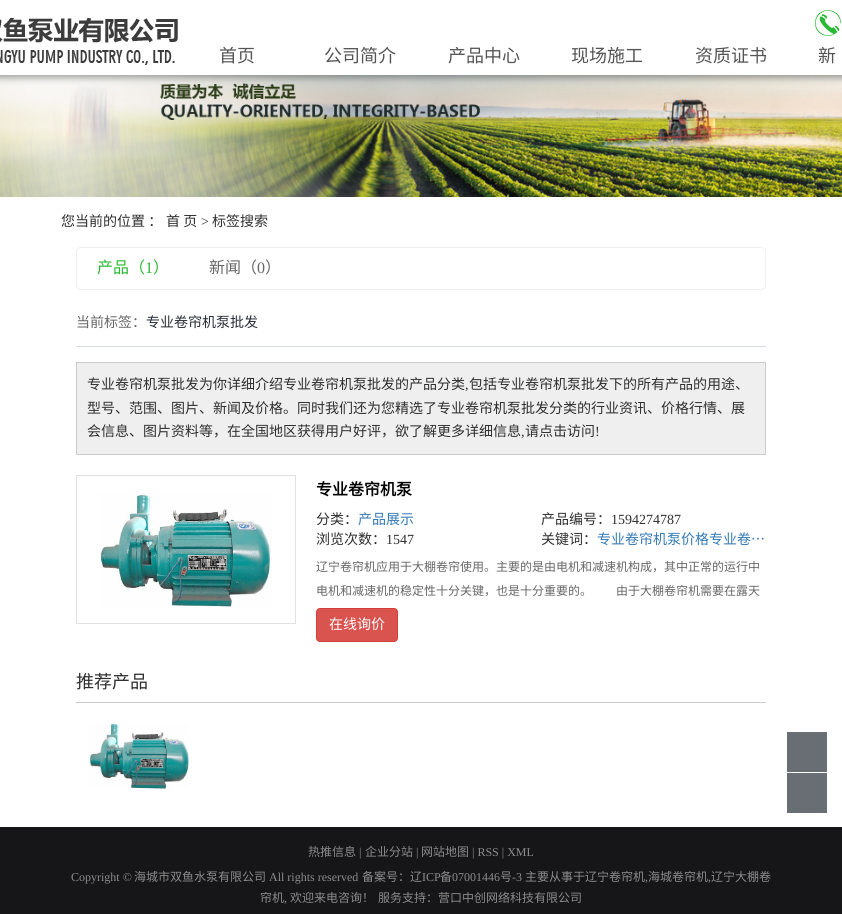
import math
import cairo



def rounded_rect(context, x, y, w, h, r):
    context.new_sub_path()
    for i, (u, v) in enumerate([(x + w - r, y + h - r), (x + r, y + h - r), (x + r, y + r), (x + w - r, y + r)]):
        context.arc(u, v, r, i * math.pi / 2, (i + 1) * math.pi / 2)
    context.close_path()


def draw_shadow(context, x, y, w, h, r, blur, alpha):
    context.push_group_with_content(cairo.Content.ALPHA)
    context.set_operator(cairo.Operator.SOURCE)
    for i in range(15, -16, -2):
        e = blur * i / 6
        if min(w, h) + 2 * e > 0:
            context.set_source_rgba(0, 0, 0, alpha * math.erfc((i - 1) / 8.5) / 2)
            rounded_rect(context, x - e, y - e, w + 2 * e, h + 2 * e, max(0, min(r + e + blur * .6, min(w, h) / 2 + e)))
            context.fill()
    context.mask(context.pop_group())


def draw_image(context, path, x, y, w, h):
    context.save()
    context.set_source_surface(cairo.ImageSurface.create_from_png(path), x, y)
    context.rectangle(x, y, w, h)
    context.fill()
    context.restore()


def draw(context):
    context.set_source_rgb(1, 1, 1)
    context.paint()
    draw_image(context, "images/3.png", 0, 75, 842, 122)
    context.set_source_rgb(0, 0, 0)
    draw_shadow(context, -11, 3, 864, 75, 0, 3.5, 0.35)
    context.set_source_rgb(1, 1, 1)
    context.rectangle(0, 0, 842, 75)
    context.fill()
    draw_image(context, "images/1.png", 0, 17, 178, 48)
    draw_image(context, "images/2.png", 815, 10, 26, 26)
    rounded_rect(context, 76.5, 247.5, 689, 42, 4.5)
    context.set_source_rgb(239 / 255, 239 / 255, 239 / 255)
    context.set_line_width(1)
    context.stroke()
    context.set_source_rgb(214 / 255, 219 / 255, 225 / 255)
    context.rectangle(76, 346, 690, 1)
    context.fill()
    context.set_source_rgb(239 / 255, 239 / 255, 239 / 255)
    context.rectangle(76.5, 362.5, 689, 92)
    context.fill_preserve()
    context.set_source_rgb(204 / 255, 204 / 255, 204 / 255)
    context.stroke()
    context.rectangle(76.5, 475.5, 219, 148)
    context.set_source_rgb(225 / 255, 225 / 255, 225 / 255)
    context.stroke()
    draw_image(context, "images/4.png", 99, 493, 173, 115)
    context.set_source_rgb(217 / 255, 83 / 255, 79 / 255)
    rounded_rect(context, 316.5, 608.5, 81, 33, 3.5)
    context.fill_preserve()
    context.set_source_rgb(212 / 255, 63 / 255, 58 / 255)
    context.stroke()
    context.set_source_rgb(204 / 255, 204 / 255, 204 / 255)
    context.rectangle(76, 702, 690, 1)
    context.fill()
    draw_image(context, "images/5.png", 89, 723, 100, 66)
    context.set_source_rgb(105 / 255, 109 / 255, 116 / 255)
    context.rectangle(787, 732, 40, 40)
    context.fill()
    context.rectangle(787, 773, 40, 40)
    context.fill()
    context.set_source_rgb(22 / 255, 22 / 255, 24 / 255)
    context.rectangle(0, 827, 842, 87)
    context.fill()
    context.select_font_face("Noto Sans CJK SC")
    context.set_font_size(18)
    context.set_source_rgb(85 / 255, 85 / 255, 85 / 255)
    context.move_to(219, 62)
    context.show_text("首页")
    context.move_to(324, 62)
    context.show_text("公司简介")
    context.move_to(448, 62)
    context.show_text("产品中心")
    context.move_to(571, 62)
    context.show_text("现场施工")
    context.move_to(695, 62)
    context.show_text("资质证书")
    context.move_to(818, 62)
    context.show_text("新")
    context.set_font_size(14)
    context.set_source_rgb(47 / 255, 47 / 255, 47 / 255)
    context.move_to(61, 226)
    context.show_text("您当前的位置 ：")
    context.move_to(166, 226)
    context.show_text("首 页")
    context.select_font_face("Liberation Serif")
    context.move_to(201, 226)
    context.show_text(">")
    context.select_font_face("Noto Sans CJK SC")
    context.move_to(212, 226)
    context.show_text("标签搜索")
    context.set_font_size(16)
    context.set_source_rgb(41 / 255, 185 / 255, 51 / 255)
    context.move_to(97, 273)
    context.show_text("产品（")
    context.select_font_face("Liberation Serif")
    context.move_to(145, 273)
    context.show_text("1")
    context.select_font_face("Noto Sans CJK SC")
    context.move_to(153, 273)
    context.show_text("）")
    context.set_source_rgb(102 / 255, 102 / 255, 102 / 255)
    context.move_to(209, 273)
    context.show_text("新闻（")
    context.select_font_face("Liberation Serif")
    context.move_to(257, 273)
    context.show_text("0")
    context.select_font_face("Noto Sans CJK SC")
    context.move_to(265, 273)
    context.show_text("）")
    context.set_font_size(14)
    context.move_to(76, 327)
    context.show_text("当前标签：")
    context.set_source_rgb(41 / 255, 46 / 255, 57 / 255)
    context.move_to(146, 327)
    context.show_text("专业卷帘机泵批发")
    context.set_source_rgb(47 / 255, 47 / 255, 47 / 255)
    context.move_to(87, 389)
    context.show_text("专业卷帘机泵批发为你详细介绍专业卷帘机泵批发的产品分类")
    context.select_font_face("Liberation Serif")
    context.move_to(465, 389)
    context.show_text(",")
    context.select_font_face("Noto Sans CJK SC")
    context.move_to(469, 389)
    context.show_text("包括专业卷帘机泵批发下的所有产品的用途、")
    context.move_to(87, 413)
    context.show_text("型号、范围、图片、新闻及价格。同时我们还为您精选了专业卷帘机泵批发分类的行业资讯、价格行情、展")
    context.move_to(87, 436)
    context.show_text("会信息、图片资料等，在全国地区获得用户好评，欲了解更多详细信息")
    context.select_font_face("Liberation Serif")
    context.move_to(521, 436)
    context.show_text(",")
    context.select_font_face("Noto Sans CJK SC")
    context.move_to(525, 436)
    context.show_text("请点击访问")
    context.select_font_face("Liberation Serif")
    context.move_to(595, 436)
    context.show_text("!")
    context.select_font_face("Noto Sans CJK SC", cairo.FontSlant.NORMAL, cairo.FontWeight.BOLD)
    context.set_font_size(16)
    context.set_source_rgb(0, 0, 0)
    context.move_to(316, 495)
    context.show_text("专业卷帘机泵")
    context.select_font_face("Noto Sans CJK SC")
    context.set_font_size(14)
    context.set_source_rgb(47 / 255, 47 / 255, 47 / 255)
    context.move_to(316, 524)
    context.show_text("分类：")
    context.set_source_rgb(51 / 255, 122 / 255, 183 / 255)
    context.move_to(358, 524)
    context.show_text("产品展示")
    context.set_source_rgb(47 / 255, 47 / 255, 47 / 255)
    context.move_to(541, 524)
    context.show_text("产品编号：")
    context.select_font_face("Liberation Serif")
    context.move_to(611, 524)
    context.show_text("1594274787")
    context.select_font_face("Noto Sans CJK SC")
    context.move_to(316, 544)
    context.show_text("浏览次数：")
    context.select_font_face("Liberation Serif")
    context.move_to(386, 544)
    context.show_text("1547")
    context.select_font_face("Noto Sans CJK SC")
    context.move_to(541, 544)
    context.show_text("关键词：")
    context.set_source_rgb(51 / 255, 122 / 255, 183 / 255)
    context.move_to(597, 544)
    context.show_text("专业卷帘机泵价格专业卷…")
    context.set_font_size(12)
    context.set_source_rgb(102 / 255, 102 / 255, 102 / 255)
    context.move_to(316, 571)
    context.show_text("辽宁卷帘机应用于大棚卷帘使用。主要的是由电机和减速机构成，其中正常的运行中")
    context.move_to(316, 595)
    context.show_text("电机和减速机的稳定性十分关键，也是十分重要的。　　由于大棚卷帘机需要在露天")
    context.set_font_size(14)
    context.set_source_rgb(1, 1, 1)
    context.move_to(329, 629)
    context.show_text("在线询价")
    context.set_font_size(18)
    context.set_source_rgb(47 / 255, 47 / 255, 47 / 255)
    context.move_to(76, 688)
    context.show_text("推荐产品")
    context.set_font_size(12)
    context.set_source_rgb(139 / 255, 139 / 255, 140 / 255)
    context.move_to(308, 856)
    context.show_text("热推信息")
    context.select_font_face("Liberation Serif")
    context.move_to(359, 856)
    context.show_text("|")
    context.select_font_face("Noto Sans CJK SC")
    context.move_to(365, 856)
    context.show_text("企业分站")
    context.select_font_face("Liberation Serif")
    context.move_to(416, 856)
    context.show_text("|")
    context.select_font_face("Noto Sans CJK SC")
    context.move_to(421, 856)
    context.show_text("网站地图")
    context.select_font_face("Liberation Serif")
    context.move_to(472, 856)
    context.show_text("| RSS | XML")
    context.move_to(71, 881)
    context.show_text("Copyright ©")
    context.select_font_face("Noto Sans CJK SC")
    context.move_to(134, 881)
    context.show_text("海城市双鱼水泵有限公司")
    context.select_font_face("Liberation Serif")
    context.move_to(269, 881)
    context.show_text("All rights reserved")
    context.select_font_face("Noto Sans CJK SC")
    context.move_to(362, 881)
    context.show_text("备案号：辽")
    context.select_font_face("Liberation Serif")
    context.move_to(422, 881)
    context.show_text("ICP")
    context.select_font_face("Noto Sans CJK SC")
    context.move_to(440, 881)
    context.show_text("备")
    context.select_font_face("Liberation Serif")
    context.move_to(452, 881)
    context.show_text("07001446")
    context.select_font_face("Noto Sans CJK SC")
    context.move_to(500, 881)
    context.show_text("号")
    context.select_font_face("Liberation Serif")
    context.move_to(512, 881)
    context.show_text("-3")
    context.select_font_face("Noto Sans CJK SC")
    context.move_to(525, 881)
    context.show_text("主要从事于辽宁卷帘机")
    context.select_font_face("Liberation Serif")
    context.move_to(645, 881)
    context.show_text(",")
    context.select_font_face("Noto Sans CJK SC")
    context.move_to(648, 881)
    context.show_text("海城卷帘机")
    context.select_font_face("Liberation Serif")
    context.move_to(708, 881)
    context.show_text(",")
    context.select_font_face("Noto Sans CJK SC")
    context.move_to(711, 881)
    context.show_text("辽宁大棚卷")
    context.move_to(260, 902)
    context.show_text("帘机")
    context.select_font_face("Liberation Serif")
    context.move_to(284, 902)
    context.show_text(",")
    context.select_font_face("Noto Sans CJK SC")
    context.move_to(290, 902)
    context.show_text("欢迎来电咨询！")
    context.move_to(378, 902)
    context.show_text("服务支持：营口中创网络科技有限公司")


surface = cairo.ImageSurface(cairo.Format.RGB24, 842, 914)
context = cairo.Context(surface)
options = cairo.FontOptions()
options.set_hint_metrics(cairo.HintMetrics.OFF)
options.set_hint_style(cairo.HintStyle.NONE)
context.set_font_options(options)
context.set_miter_limit(4)
draw(context)
surface.write_to_png("out.png")
